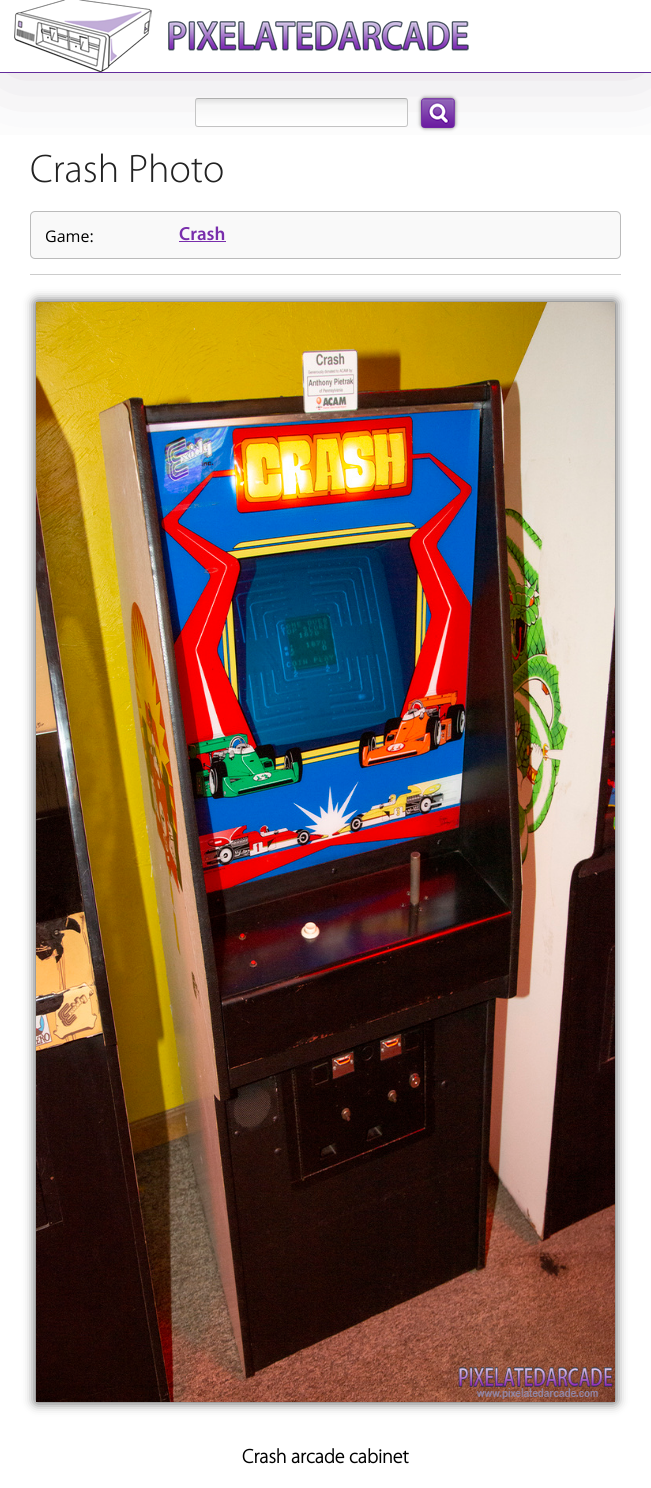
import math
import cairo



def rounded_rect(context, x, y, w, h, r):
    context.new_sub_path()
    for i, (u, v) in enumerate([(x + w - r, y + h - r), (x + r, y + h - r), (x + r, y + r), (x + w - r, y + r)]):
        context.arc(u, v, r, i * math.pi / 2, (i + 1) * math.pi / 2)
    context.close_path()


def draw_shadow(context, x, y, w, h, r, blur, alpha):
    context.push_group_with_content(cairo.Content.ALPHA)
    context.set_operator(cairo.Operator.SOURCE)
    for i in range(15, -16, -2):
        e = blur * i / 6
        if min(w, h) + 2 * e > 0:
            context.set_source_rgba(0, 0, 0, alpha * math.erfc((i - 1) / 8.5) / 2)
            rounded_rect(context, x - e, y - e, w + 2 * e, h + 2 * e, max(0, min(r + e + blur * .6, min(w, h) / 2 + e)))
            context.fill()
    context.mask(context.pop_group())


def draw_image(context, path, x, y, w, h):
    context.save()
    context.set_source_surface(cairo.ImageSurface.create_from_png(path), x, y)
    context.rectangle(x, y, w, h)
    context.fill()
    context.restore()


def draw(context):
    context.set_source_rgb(1, 1, 1)
    context.paint()
    context.save()
    context.rectangle(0, 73, 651, 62)
    context.clip()
    context.set_source_rgb(107 / 255, 83 / 255, 112 / 255)
    draw_shadow(context, 0, 0, 651, 73, 0, 47, 0.22)
    context.restore()
    context.set_source_rgb(99 / 255, 44 / 255, 156 / 255)
    context.rectangle(0, 72, 651, 1)
    context.fill()
    draw_image(context, "images/1.png", 14, 0, 455, 72)
    context.save()
    rounded_rect(context, 195, 98, 213, 29, 3)
    context.clip()
    gradient = cairo.LinearGradient(302, 99, 302, 126)
    gradient.add_color_stop_rgba(0.02, 227 / 255, 227 / 255, 227 / 255, 1)
    gradient.add_color_stop_rgba(0.23, 247 / 255, 247 / 255, 247 / 255, 1)
    gradient.add_color_stop_rgba(0.35, 247 / 255, 247 / 255, 247 / 255, 1)
    gradient.add_color_stop_rgba(1, 1, 1, 1, 1)
    context.set_source(gradient)
    context.rectangle(195, 99, 213, 27)
    context.fill()
    context.restore()
    context.new_path()
    context.move_to(196, 99)
    context.line_to(198, 98.5)
    context.line_to(405, 98.5)
    context.line_to(407, 99)
    context.set_source_rgb(174 / 255, 174 / 255, 174 / 255)
    context.set_line_width(1)
    context.stroke()
    context.new_path()
    context.move_to(407, 99)
    context.curve_to(407, 99.5, 407.5, 100.5, 407.5, 101)
    context.line_to(407.5, 124)
    context.curve_to(407.5, 124.5, 407, 125.5, 407, 126)
    context.set_source_rgb(196 / 255, 196 / 255, 196 / 255)
    context.stroke()
    context.new_path()
    context.move_to(407, 126)
    context.line_to(405, 126.5)
    context.line_to(198, 126.5)
    context.line_to(196, 126)
    context.set_source_rgb(195 / 255, 195 / 255, 195 / 255)
    context.stroke()
    context.new_path()
    context.move_to(196, 126)
    context.curve_to(196, 125.5, 195.5, 124.5, 195.5, 124)
    context.line_to(195.5, 101)
    context.curve_to(195.5, 100.5, 196, 99.5, 196, 99)
    context.set_source_rgb(197 / 255, 197 / 255, 197 / 255)
    context.stroke()
    context.set_source_rgb(0, 0, 0)
    draw_shadow(context, 421, 98, 34, 30, 4, 2, 0.55)
    draw_image(context, "images/2.png", 421, 98, 34, 30)
    context.set_source_rgb(249 / 255, 249 / 255, 249 / 255)
    rounded_rect(context, 30.5, 211.5, 590, 47, 4.5)
    context.fill_preserve()
    context.set_source_rgb(187 / 255, 187 / 255, 187 / 255)
    context.stroke()
    context.set_source_rgb(121 / 255, 46 / 255, 172 / 255)
    context.rectangle(179, 241, 47, 1)
    context.fill()
    context.set_source_rgb(204 / 255, 204 / 255, 204 / 255)
    context.rectangle(30, 274, 591, 1)
    context.fill()
    context.set_source_rgb(0, 0, 0)
    draw_shadow(context, 36, 302, 579, 1100, 0, 6, 0.75)
    draw_image(context, "images/3.png", 36, 302, 579, 1100)
    context.select_font_face("Myriad Light")
    context.set_font_size(40)
    context.set_source_rgb(34 / 255, 34 / 255, 34 / 255)
    context.move_to(30, 182)
    context.show_text("Crash Photo")
    context.select_font_face("Open Sans")
    context.set_font_size(16)
    context.set_source_rgb(0, 0, 0)
    context.move_to(45, 242)
    context.show_text("Game:")
    context.select_font_face("Myriad SemiBold")
    context.set_font_size(19)
    context.set_source_rgb(121 / 255, 46 / 255, 172 / 255)
    context.move_to(179, 240)
    context.show_text("Crash")
    context.select_font_face("Myriad", cairo.FontSlant.NORMAL, cairo.FontWeight.BOLD)
    context.set_font_size(20)
    context.set_source_rgb(0, 0, 0)
    context.move_to(242, 1463)
    context.show_text("Crash arcade cabinet")


surface = cairo.ImageSurface(cairo.Format.RGB24, 651, 1488)
context = cairo.Context(surface)
options = cairo.FontOptions()
options.set_hint_metrics(cairo.HintMetrics.OFF)
options.set_hint_style(cairo.HintStyle.NONE)
context.set_font_options(options)
context.set_miter_limit(4)
draw(context)
surface.write_to_png("out.png")
